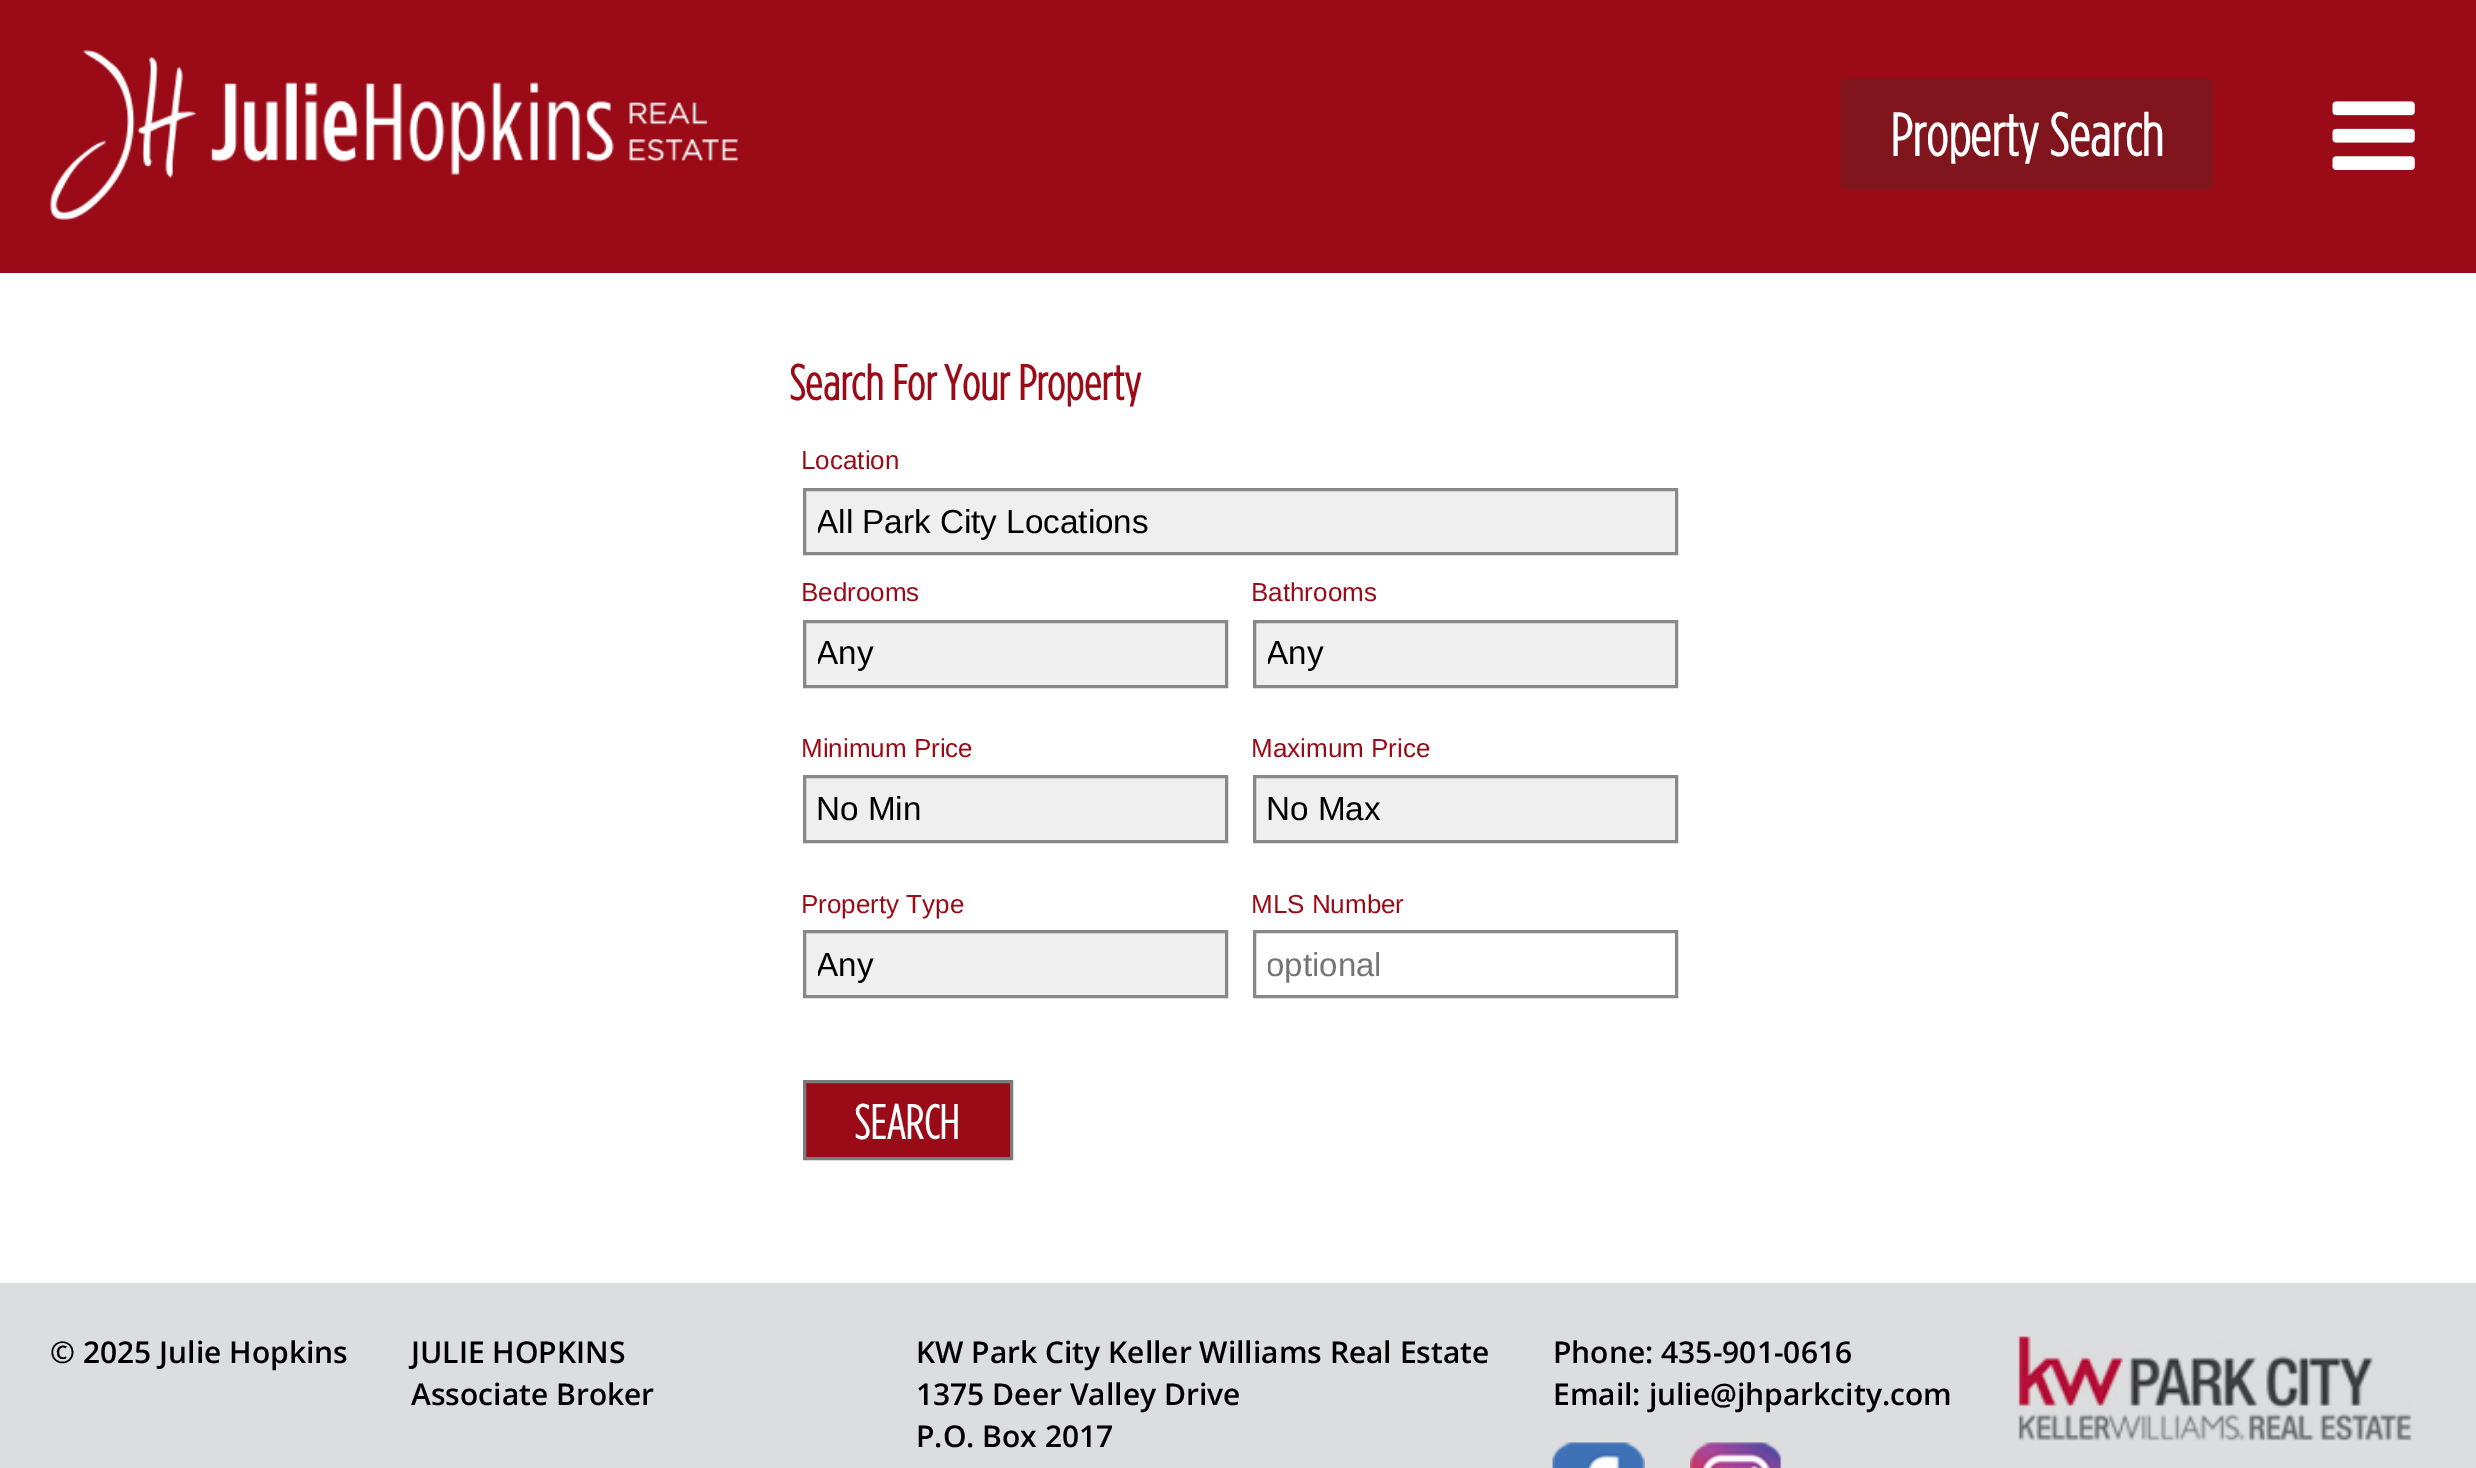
%!PS-Adobe-3.0
%%BoundingBox: 0 0 2476 1468
%%LanguageLevel: 3
%%Pages: 1
%%EndComments
%%BeginProlog
/rrect { 5 dict begin { /r /h /w /y /x } { exch def } forall
  x r add y moveto x w add y 2 copy h add r arct x w add y h add x 1 index r arct
  x y h add x y r arct x y 2 copy exch w add exch r arct closepath end } def
/drawimage { 5 dict begin { /h /w /y /x /name } { exch def } forall
  gsave x y translate w h scale
  w h 8 [w 0 0 h 0 0] name (r) file false 3 colorimage grestore end } def
%%EndProlog
%%BeginSetup
<< /PageSize [2476 1468] >> setpagedevice
%%EndSetup
%%Page: 1 1
0 1468 translate 1 -1 scale
4 setmiterlimit
0.863 0.867 0.871 setrgbcolor
0 0 2476 1468 rectfill
0.608 0.043 0.09 setrgbcolor
0 0 2476 273 rectfill
(images/1.raw) 50 50 688 170 drawimage
0.502 0.082 0.118 setrgbcolor
1840 78 373 112 8 rrect fill
(images/2.raw) 2332 101 83 69 drawimage
1 setgray
0 273 2476 1010 rectfill
0.937 setgray
newpath 804.5 489.5 moveto 1676.5 489.5 lineto 1676.5 553.5 lineto 804.5 553.5 lineto closepath gsave fill grestore
0.533 setgray
3 setlinewidth
stroke
0.937 setgray
newpath 804.5 621.5 moveto 1226.5 621.5 lineto 1226.5 686.5 lineto 804.5 686.5 lineto closepath gsave fill grestore
0.533 setgray
stroke
0.937 setgray
newpath 1254.5 621.5 moveto 1676.5 621.5 lineto 1676.5 686.5 lineto 1254.5 686.5 lineto closepath gsave fill grestore
0.533 setgray
stroke
0.937 setgray
newpath 804.5 776.5 moveto 1226.5 776.5 lineto 1226.5 841.5 lineto 804.5 841.5 lineto closepath gsave fill grestore
0.533 setgray
stroke
0.937 setgray
newpath 1254.5 776.5 moveto 1676.5 776.5 lineto 1676.5 841.5 lineto 1254.5 841.5 lineto closepath gsave fill grestore
0.533 setgray
stroke
0.937 setgray
newpath 804.5 931.5 moveto 1226.5 931.5 lineto 1226.5 996.5 lineto 804.5 996.5 lineto closepath gsave fill grestore
0.533 setgray
stroke
1254.5 931.5 422 65 rectstroke
0.608 0.043 0.09 setrgbcolor
newpath 804.5 1081.5 moveto 1011.5 1081.5 lineto 1011.5 1158.5 lineto 804.5 1158.5 lineto closepath gsave fill grestore
0.478 setgray
stroke
(images/3.raw) 1552 1442 93 26 drawimage
(images/4.raw) 1690 1442 92 26 drawimage
(images/5.raw) 2018 1336 394 105 drawimage
/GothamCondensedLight-Bold [60 0 0 -60 0 0] selectfont
1 setgray
1890 156 moveto (Property Search) show
/GothamCondensedLight-Bold [49.5 0 0 -49.5 0 0] selectfont
0.608 0.043 0.09 setrgbcolor
789 400 moveto (Search For Your Property) show
/LiberationSans-Regular [26 0 0 -26 0 0] selectfont
801 469 moveto (Location) show
gsave
818 503 845 37 rectclip
/LiberationSans-Regular [33.25 0 0 -33.25 0 0] selectfont
0 setgray
816 533 moveto (All Park City Locations) show
grestore
801 601 moveto (Bedrooms) show
gsave
818 635 395 38 rectclip
/LiberationSans-Regular [33.25 0 0 -33.25 0 0] selectfont
0 setgray
816 664 moveto (Any) show
grestore
1251 601 moveto (Bathrooms) show
gsave
1268 635 395 38 rectclip
/LiberationSans-Regular [33.25 0 0 -33.25 0 0] selectfont
0 setgray
1266 664 moveto (Any) show
grestore
801 757 moveto (Minimum Price) show
/LiberationSans-Regular [33.25 0 0 -33.25 0 0] selectfont
0 setgray
816 820 moveto (No Min) show
/LiberationSans-Regular [26 0 0 -26 0 0] selectfont
0.608 0.043 0.09 setrgbcolor
1251 757 moveto (Maximum Price) show
/LiberationSans-Regular [33.25 0 0 -33.25 0 0] selectfont
0 setgray
1266 820 moveto (No Max) show
/LiberationSans-Regular [26 0 0 -26 0 0] selectfont
0.608 0.043 0.09 setrgbcolor
801 913 moveto (Property Type) show
gsave
818 945 395 38 rectclip
/LiberationSans-Regular [33.25 0 0 -33.25 0 0] selectfont
0 setgray
816 976 moveto (Any) show
grestore
1251 913 moveto (MLS Number) show
gsave
1268 945 395 38 rectclip
/LiberationSans-Regular [33 0 0 -33 0 0] selectfont
0.459 setgray
1266 976 moveto (optional) show
grestore
/GothamCondensedLight-Bold [48 0 0 -48 0 0] selectfont
1 setgray
854 1139 moveto (SEARCH) show
/OpenSans-SemiBold [30 0 0 -30 0 0] selectfont
0 setgray
50 1363 moveto (© 2025 Julie Hopkins) show
411 1363 moveto (JULIE HOPKINS) show
411 1405 moveto (Associate Broker) show
916 1363 moveto (KW Park City Keller Williams Real Estate) show
916 1405 moveto (1375 Deer Valley Drive) show
916 1447 moveto (P.O. Box 2017) show
1553 1363 moveto (Phone: 435-901-0616) show
1553 1405 moveto (Email: julie@jhparkcity.com) show
showpage
%%EOF
